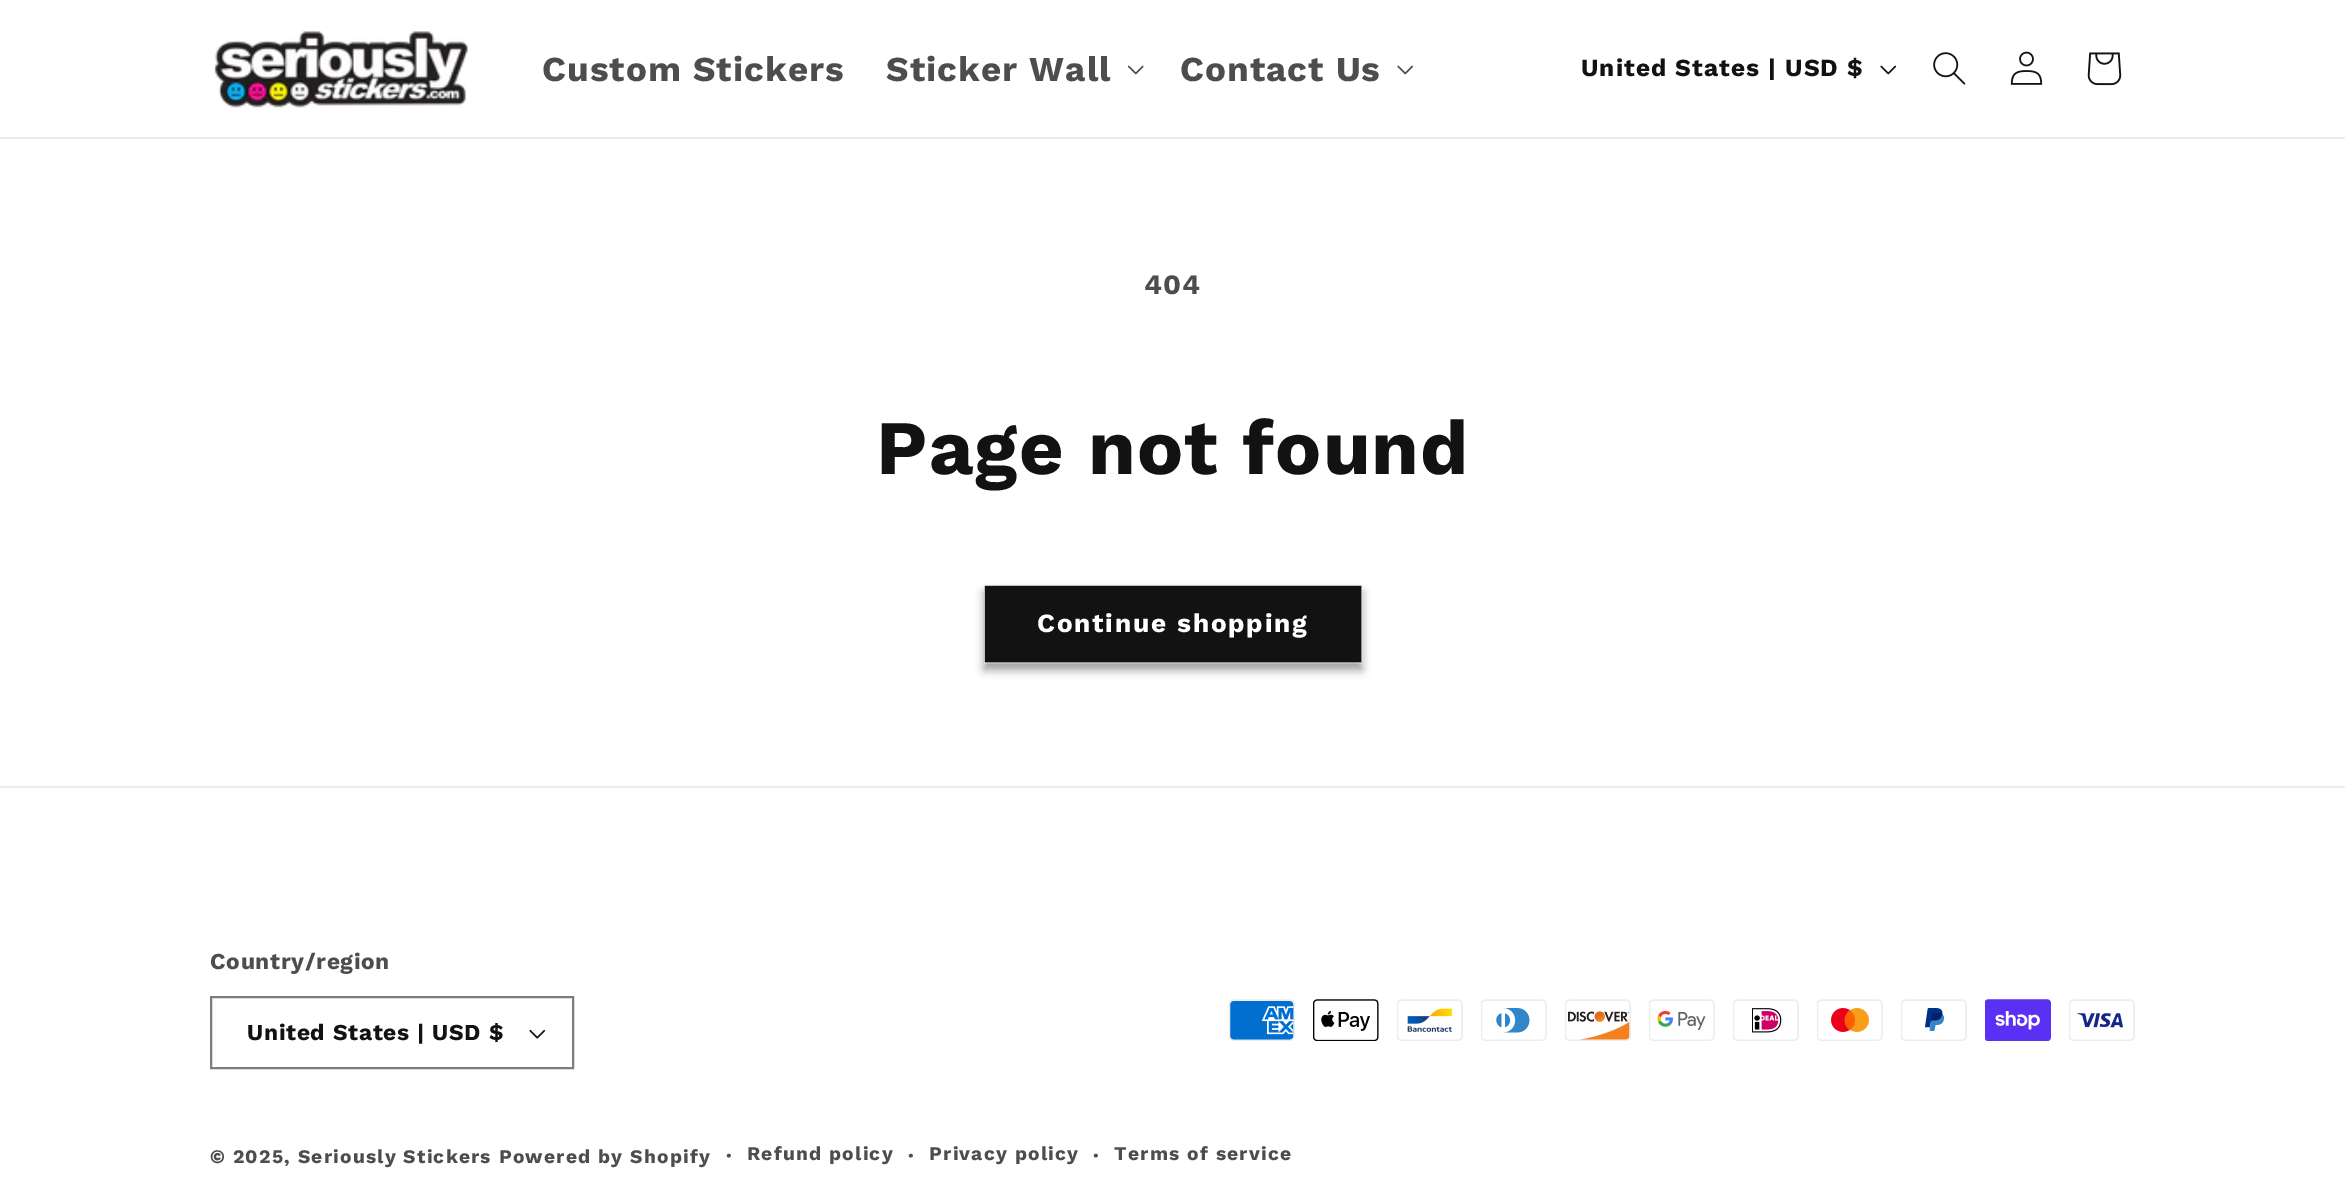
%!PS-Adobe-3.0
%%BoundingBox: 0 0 2345 1186
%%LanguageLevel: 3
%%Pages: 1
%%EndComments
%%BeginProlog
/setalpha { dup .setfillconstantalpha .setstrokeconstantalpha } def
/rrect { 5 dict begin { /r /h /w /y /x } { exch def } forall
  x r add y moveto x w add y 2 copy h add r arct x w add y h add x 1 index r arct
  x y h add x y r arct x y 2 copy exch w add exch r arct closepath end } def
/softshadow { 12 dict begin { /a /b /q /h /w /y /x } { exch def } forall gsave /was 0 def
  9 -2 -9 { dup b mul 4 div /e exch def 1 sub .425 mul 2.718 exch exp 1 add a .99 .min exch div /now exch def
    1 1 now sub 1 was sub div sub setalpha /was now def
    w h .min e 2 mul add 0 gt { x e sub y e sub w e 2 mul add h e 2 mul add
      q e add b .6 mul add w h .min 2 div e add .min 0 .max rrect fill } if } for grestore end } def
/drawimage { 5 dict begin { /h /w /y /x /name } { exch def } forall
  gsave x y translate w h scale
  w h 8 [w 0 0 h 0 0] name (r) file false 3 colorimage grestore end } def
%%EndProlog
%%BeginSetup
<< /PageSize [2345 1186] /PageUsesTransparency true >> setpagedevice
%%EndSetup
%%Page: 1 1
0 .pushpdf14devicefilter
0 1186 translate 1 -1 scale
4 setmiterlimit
1 setgray
0 0 2345 1186 rectfill
0.925 setgray
0 137 2345 2 rectfill
(images/1.raw) 214 31 254 77 drawimage
(images/2.raw) 1127 65 17 10 drawimage
(images/3.raw) 1397 65 17 10 drawimage
(images/4.raw) 1880 65 17 10 drawimage
(images/5.raw) 1933 52 33 33 drawimage
(images/6.raw) 2010 51 33 34 drawimage
(images/7.raw) 2087 52 35 34 drawimage
0.071 setgray
984 592 378 78 0 4.5 0.4 softshadow
984 585 378 78 rectfill
1 setgray
0.5 setlinewidth
984.25 585.25 377.5 77.5 rectstroke
0.925 setgray
0 786 2345 2 rectfill
(images/8.raw) 529 1029 17 10 drawimage
0.49 setgray
2 setlinewidth
211 997 362 71 rectstroke
(images/9.raw) 1229 999 66 42 drawimage
(images/10.raw) 1313 999 66 42 drawimage
(images/11.raw) 1397 999 66 42 drawimage
(images/12.raw) 1481 999 66 42 drawimage
(images/13.raw) 1565 999 66 42 drawimage
(images/14.raw) 1649 999 66 42 drawimage
(images/15.raw) 1733 999 66 42 drawimage
(images/16.raw) 1817 999 66 42 drawimage
(images/17.raw) 1901 999 66 42 drawimage
(images/18.raw) 1985 999 66 42 drawimage
(images/19.raw) 2069 999 66 42 drawimage
/WorkSans-Bold [35 0 0 -35 0 0] selectfont
0.302 setgray
542 81 moveto 1.05 0 (Custom Stickers) ashow
886 81 moveto 1.05 0 (Sticker Wall) ashow
1180 81 moveto 1.05 0 (Contact Us) ashow
/WorkSans-Bold [24.5 0 0 -24.5 0 0] selectfont
0.071 setgray
1581 76 moveto 1.05 0 (United States | USD $) ashow
/WorkSans-Bold [28 0 0 -28 0 0] selectfont
0.302 setgray
1144 294 moveto 1.05 0 (404) ashow
/WorkSans-Bold [77 0 0 -77 0 0] selectfont
0.071 setgray
876 474 moveto 1.2 0 (Page not found) ashow
/WorkSans-Bold [26.25 0 0 -26.25 0 0] selectfont
1 setgray
1037 632 moveto 1.75 0 (Continue shopping) ashow
/WorkSans-Bold [22.75 0 0 -22.75 0 0] selectfont
0.302 setgray
210 969 moveto 0.7 0 (Country/region) ashow
0.071 setgray
247 1040 moveto 0.7 0 (United States | USD $) ashow
/WorkSans-Bold [19.25 0 0 -19.25 0 0] selectfont
0.302 setgray
210 1163 moveto 1.2 0 (© 2025, Seriously Stickers Powered by Shopify) ashow
/WorkSans-Bold [21 0 0 -21 0 0] selectfont
726 1163 moveto 1.2 0 (·) ashow
/WorkSans-Bold [19.25 0 0 -19.25 0 0] selectfont
747 1160 moveto 1.2 0 (Refund policy) ashow
/WorkSans-Bold [21 0 0 -21 0 0] selectfont
908 1163 moveto 1.2 0 (·) ashow
/WorkSans-Bold [19.25 0 0 -19.25 0 0] selectfont
929 1160 moveto 1.2 0 (Privacy policy) ashow
/WorkSans-Bold [21 0 0 -21 0 0] selectfont
1093 1163 moveto 1.2 0 (·) ashow
/WorkSans-Bold [19.25 0 0 -19.25 0 0] selectfont
1114 1160 moveto 1.2 0 (Terms of service) ashow
.poppdf14devicefilter showpage
%%EOF
